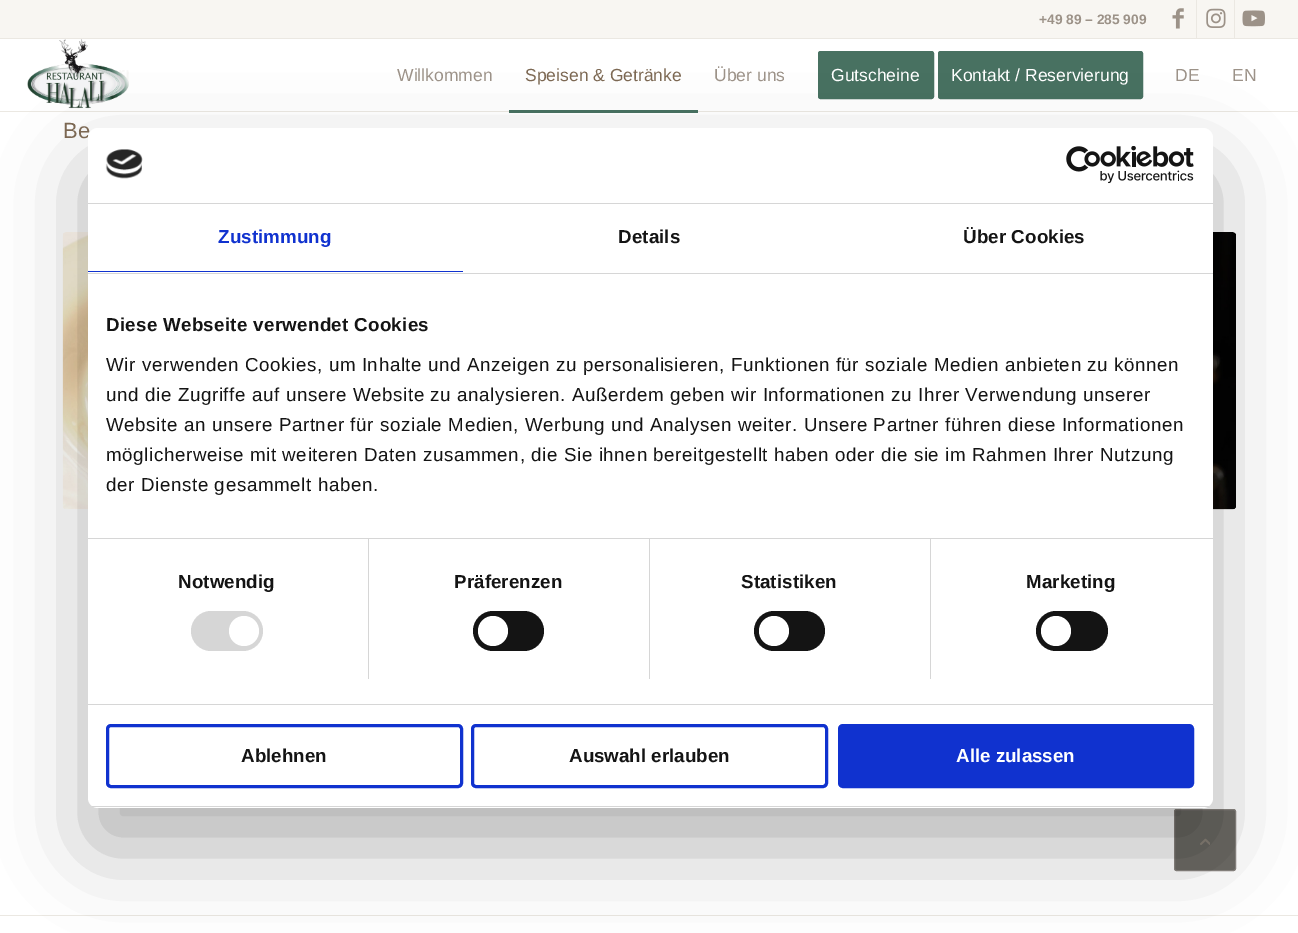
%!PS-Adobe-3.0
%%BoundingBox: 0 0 1298 933
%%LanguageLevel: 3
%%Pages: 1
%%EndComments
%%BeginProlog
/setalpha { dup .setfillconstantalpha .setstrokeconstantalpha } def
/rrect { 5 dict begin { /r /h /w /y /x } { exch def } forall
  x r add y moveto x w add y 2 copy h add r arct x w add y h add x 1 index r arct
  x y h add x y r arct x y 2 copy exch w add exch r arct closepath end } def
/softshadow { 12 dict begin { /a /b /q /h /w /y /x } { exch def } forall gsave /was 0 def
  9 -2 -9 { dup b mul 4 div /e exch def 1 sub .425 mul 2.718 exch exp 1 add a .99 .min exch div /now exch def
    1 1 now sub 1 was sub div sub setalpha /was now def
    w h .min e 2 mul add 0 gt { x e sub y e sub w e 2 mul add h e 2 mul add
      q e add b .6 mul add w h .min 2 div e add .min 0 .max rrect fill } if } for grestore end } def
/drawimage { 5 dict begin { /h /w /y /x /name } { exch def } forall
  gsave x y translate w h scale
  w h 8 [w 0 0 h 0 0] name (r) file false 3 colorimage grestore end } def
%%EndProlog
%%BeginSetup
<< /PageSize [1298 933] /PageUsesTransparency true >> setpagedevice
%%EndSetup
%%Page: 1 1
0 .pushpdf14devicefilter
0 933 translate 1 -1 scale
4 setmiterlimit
1 setgray
0 0 1298 933 rectfill
0.973 0.965 0.949 setrgbcolor
0 0 1298 38 rectfill
0.922 0.91 0.886 setrgbcolor
0 38 1298 1 rectfill
1196 0 1 38 rectfill
(images/1.raw) 1172 8 12 21 drawimage
1234 0 1 38 rectfill
(images/2.raw) 1206 8 20 20 drawimage
(images/3.raw) 1242 10 23 17 drawimage
0 111 1298 1 rectfill
(images/4.raw) 27 39 102 70 drawimage
0.282 0.443 0.38 setrgbcolor
509 110 189 3 rectfill
819.5 52.5 113 45 1 rrect gsave fill grestore
3 setlinewidth
stroke
939.5 52.5 202 45 1 rrect gsave fill grestore
stroke
(images/5.raw) 62 232 26 278 drawimage
(images/6.raw) 1213 232 23 278 drawimage
0.922 0.91 0.886 setrgbcolor
0 915 1298 1 rectfill
0.42 0.412 0.392 setrgbcolor
1174.5 809.5 61 61 2 rrect gsave fill grestore
0.537 0.522 0.502 setrgbcolor
1 setlinewidth
stroke
(images/9.raw) 1200 838 10 7 drawimage
0 setgray
88 168 1125 680 10 42.5 0.3 softshadow
/LiberationSans-Bold [13.75 0 0 -13.75 0 0] selectfont
0.612 0.573 0.533 setrgbcolor
1039 24 moveto (+49 89 – 285 909) show
/LiberationSans-Regular [17.5 0 0 -17.5 0 0] selectfont
397 81 moveto (Willkommen) show
0.486 0.408 0.325 setrgbcolor
525 81 moveto (Speisen & Getränke) show
0.612 0.573 0.533 setrgbcolor
714 81 moveto (Über uns) show
1 setgray
831 81 moveto (Gutscheine) show
951 81 moveto (Kontakt / Reservierung) show
0.612 0.573 0.533 setrgbcolor
1175 81 moveto (DE) show
1232 81 moveto (EN) show
/LiberationSans-Regular [22 0 0 -22 0 0] selectfont
0.486 0.408 0.325 setrgbcolor
63 138 moveto (Be) show
1 setgray
88 128 1125 680 10 rrect fill
0.839 setgray
88 203 1125 1 rectfill
(images/7.raw) 105 149 38 30 drawimage
(images/8.raw) 1066 146 128 38 drawimage
88 273 1125 1 rectfill
0.063 0.196 0.812 setrgbcolor
88 271 375 1 rectfill
/LiberationSans-Bold [18.75 0 0 -18.75 0 0] selectfont
218 243 moveto 0.1 0 (Zustimmung) ashow
0.078 setgray
618 243 moveto 0.1 0 (Details) ashow
963 243 moveto 0.1 0 (Über Cookies) ashow
0.839 setgray
88 538 1125 1 rectfill
0.078 setgray
106 331 moveto 0.3 0 (Diese Webseite verwendet Cookies) ashow
/LiberationSans-Regular [18.75 0 0 -18.75 0 0] selectfont
106 371 moveto 0.62 0 (Wir verwenden Cookies, um Inhalte und Anzeigen zu personalisieren, Funktionen für soziale Medien anbieten zu können) ashow
106 401 moveto 0.62 0 (und die Zugriffe auf unsere Website zu analysieren. Außerdem geben wir Informationen zu Ihrer Verwendung unserer) ashow
106 431 moveto 0.62 0 (Website an unsere Partner für soziale Medien, Werbung und Analysen weiter. Unsere Partner führen diese Informationen) ashow
106 461 moveto 0.62 0 (möglicherweise mit weiteren Daten zusammen, die Sie ihnen bereitgestellt haben oder die sie im Rahmen Ihrer Nutzung) ashow
106 491 moveto 0.62 0 (der Dienste gesammelt haben.) ashow
0.839 setgray
88 704 1125 1 rectfill
368 539 1 140 rectfill
/LiberationSans-Bold [18.75 0 0 -18.75 0 0] selectfont
0.078 setgray
178 588 moveto 0.1 0 (Notwendig) ashow
0.839 setgray
191 611 72 40 20 rrect fill
1 setgray
newpath 244 631 15 0 360 arc closepath fill
0.839 setgray
649 539 1 140 rectfill
0.078 setgray
454 588 moveto 0.1 0 (Präferenzen) ashow
473 611 71 40 20 rrect fill
1 setgray
newpath 493 631 15 0 360 arc closepath fill
0.839 setgray
930 539 1 140 rectfill
0.078 setgray
741 588 moveto 0.1 0 (Statistiken) ashow
754 611 71 40 20 rrect fill
1 setgray
newpath 774 631 15 0 360 arc closepath fill
0.078 setgray
1026 588 moveto 0.1 0 (Marketing) ashow
1036 611 72 40 20 rrect fill
1 setgray
newpath 1056 631 15 0 360 arc closepath fill
gsave
88 128 1125 680 10 rrect clip newpath
0.839 setgray
88 806 1125 1 rectfill
grestore
0.063 0.196 0.812 setrgbcolor
3 setlinewidth
107.5 725.5 354 61 3.5 rrect stroke
0.078 setgray
241 762 moveto (Ablehnen) show
0.063 0.196 0.812 setrgbcolor
472.5 725.5 354 61 3.5 rrect stroke
0.078 setgray
569 762 moveto (Auswahl erlauben) show
0.063 0.196 0.812 setrgbcolor
839.5 725.5 353 61 3.5 rrect gsave fill grestore
stroke
1 setgray
956 762 moveto (Alle zulassen) show
.poppdf14devicefilter showpage
%%EOF
